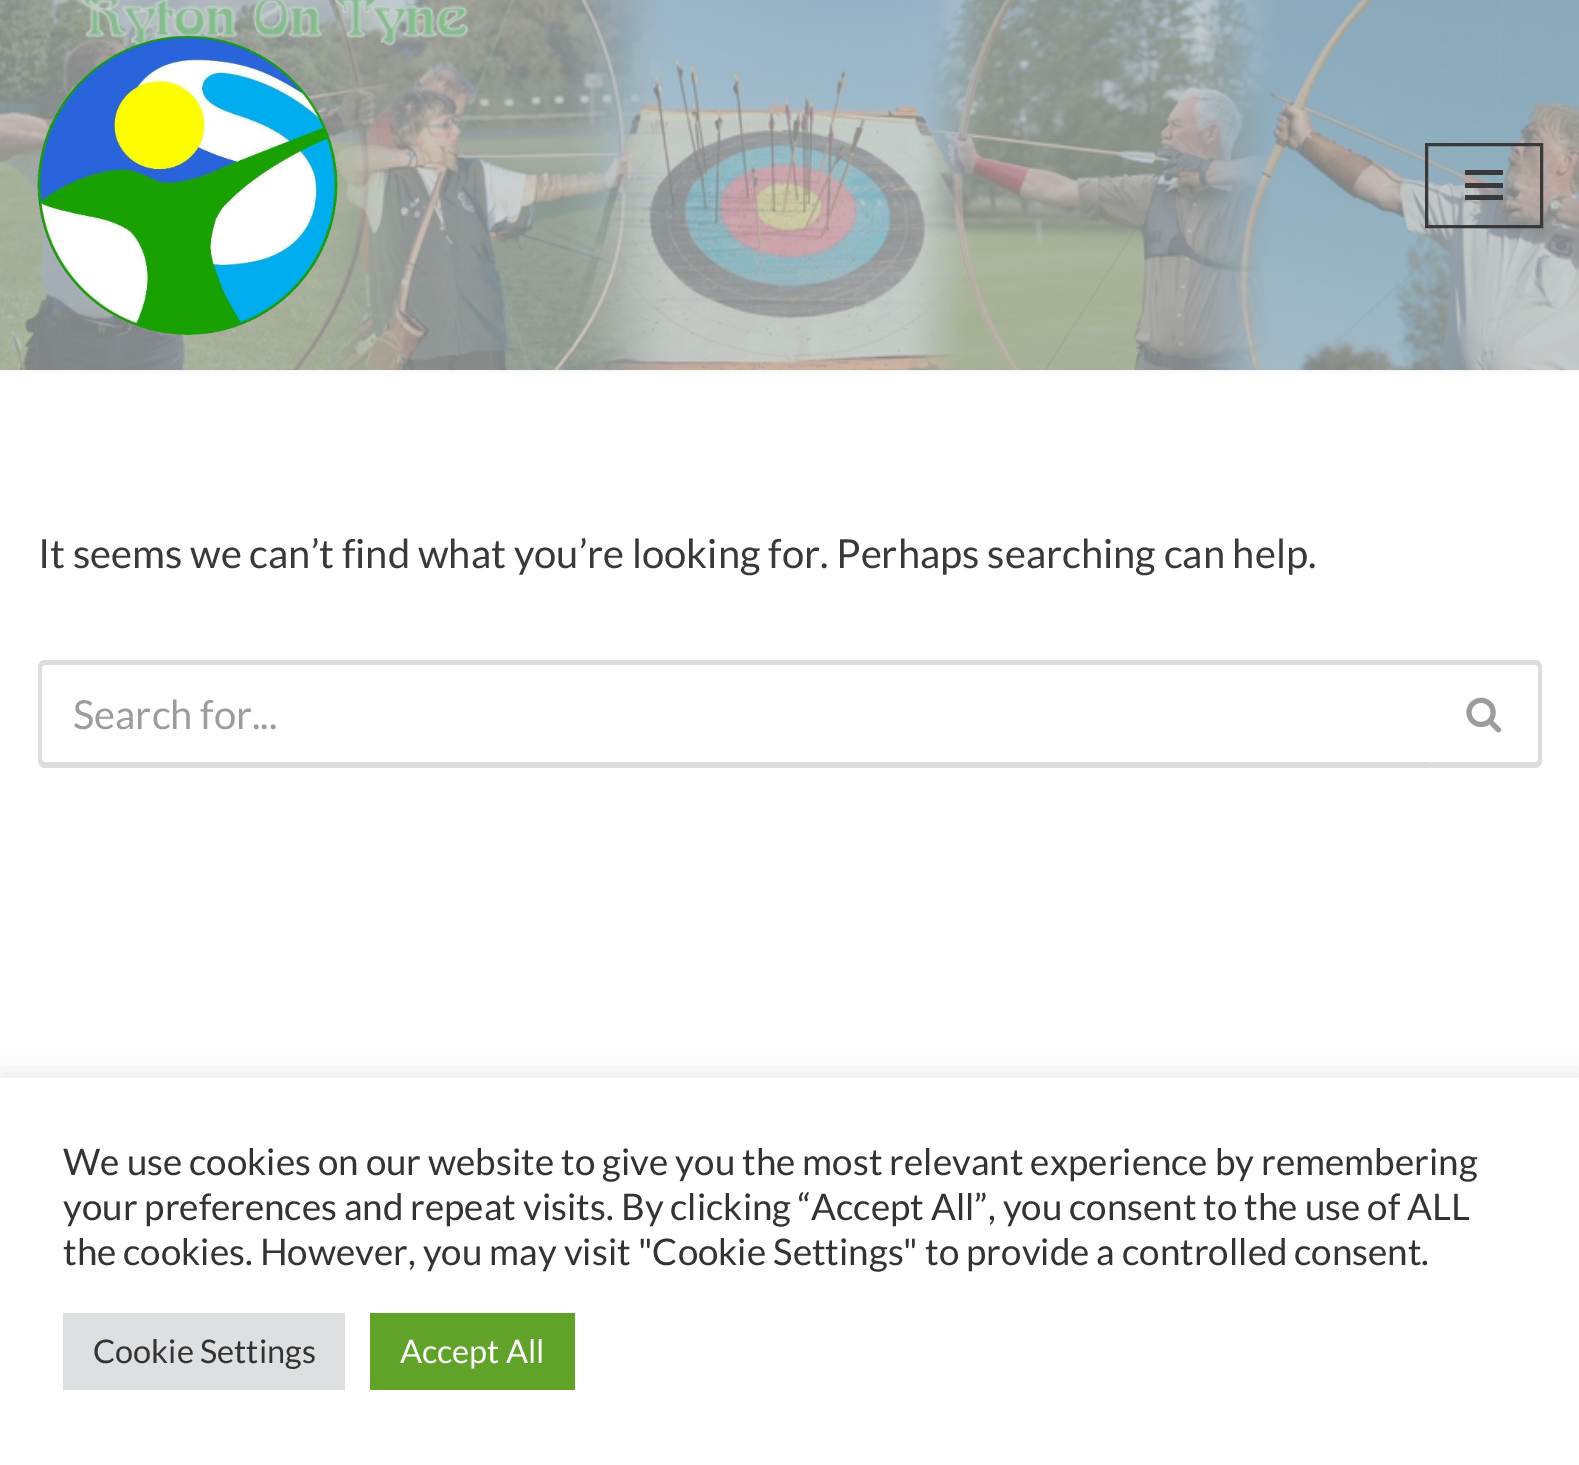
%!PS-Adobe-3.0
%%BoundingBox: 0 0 1579 1465
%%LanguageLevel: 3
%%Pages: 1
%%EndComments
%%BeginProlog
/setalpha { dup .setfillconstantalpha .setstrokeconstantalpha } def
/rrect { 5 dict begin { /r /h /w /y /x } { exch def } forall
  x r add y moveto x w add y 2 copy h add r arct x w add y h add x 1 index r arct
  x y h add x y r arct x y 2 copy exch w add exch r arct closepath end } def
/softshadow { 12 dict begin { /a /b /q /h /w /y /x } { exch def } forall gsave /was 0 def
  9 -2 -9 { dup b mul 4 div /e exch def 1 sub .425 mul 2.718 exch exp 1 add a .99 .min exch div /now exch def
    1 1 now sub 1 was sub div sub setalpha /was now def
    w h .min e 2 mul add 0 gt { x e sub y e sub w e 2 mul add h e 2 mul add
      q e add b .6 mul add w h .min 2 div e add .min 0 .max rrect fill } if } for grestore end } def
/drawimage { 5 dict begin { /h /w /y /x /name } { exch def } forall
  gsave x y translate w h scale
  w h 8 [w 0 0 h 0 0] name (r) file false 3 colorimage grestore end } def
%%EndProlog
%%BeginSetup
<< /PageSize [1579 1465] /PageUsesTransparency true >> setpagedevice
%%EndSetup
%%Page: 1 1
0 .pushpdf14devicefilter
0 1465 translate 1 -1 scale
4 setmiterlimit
1 setgray
0 0 1579 1465 rectfill
0 setgray
0 -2 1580 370 0 4 0.1 softshadow
(images/1.raw) 0 0 1579 370 drawimage
(images/2.raw) 37 35 301 300 drawimage
0.224 setgray
3 setlinewidth
1426.5 144.5 115 82 rectstroke
1465 170 38 5 rectfill
1465 183 38 5 rectfill
1465 195 38 5 rectfill
0.867 setgray
newpath 45 660 moveto 1430 660 lineto 1430 768 lineto 45 768 lineto 41 768 38 764 38 760 curveto 38 668 lineto 38 663 41 660 45 660 curveto closepath 45 665 moveto 1430 665 lineto 1430 762 lineto 45 762 lineto 44 762 42 761 42 760 curveto 42 668 lineto 42 666 44 665 45 665 curveto closepath eofill
newpath 1430 660 moveto 1535 660 lineto 1539 660 1542 663 1542 668 curveto 1542 760 lineto 1542 764 1539 768 1535 768 curveto 1430 768 lineto closepath 1430 665 moveto 1535 665 lineto 1536 665 1538 666 1538 668 curveto 1538 760 lineto 1538 761 1536 762 1535 762 curveto 1430 762 lineto closepath eofill
(images/3.raw) 1466 697 36 36 drawimage
1 setgray
1430 762 1 1 rectfill
0.675 0.671 0.671 setrgbcolor
0 1075 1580 388 0 12.5 0.3 softshadow
1 setgray
0 1078 1579 387 rectfill
0.871 0.875 0.878 setrgbcolor
63 1313 282 77 rectfill
0.38 0.635 0.161 setrgbcolor
370 1313 205 77 rectfill
/Lato-Regular [40 0 0 -40 0 0] selectfont
0.224 setgray
38 568 moveto (It seems we can’t find what you’re looking for. Perhaps searching can help.) show
0.612 setgray
73 729 moveto (Search for...) show
/Lato-Regular [36.65 0 0 -36.65 0 0] selectfont
0.2 setgray
63 1175 moveto (We use cookies on our website to give you the most relevant experience by remembering) show
63 1220 moveto (your preferences and repeat visits. By clicking “Accept All”, you consent to the use of ALL) show
63 1265 moveto (the cookies. However, you may visit "Cookie Settings" to provide a controlled consent.) show
/Lato-Regular [32.5 0 0 -32.5 0 0] selectfont
93 1363 moveto (Cookie Settings) show
1 setgray
400 1363 moveto (Accept All) show
.poppdf14devicefilter showpage
%%EOF
